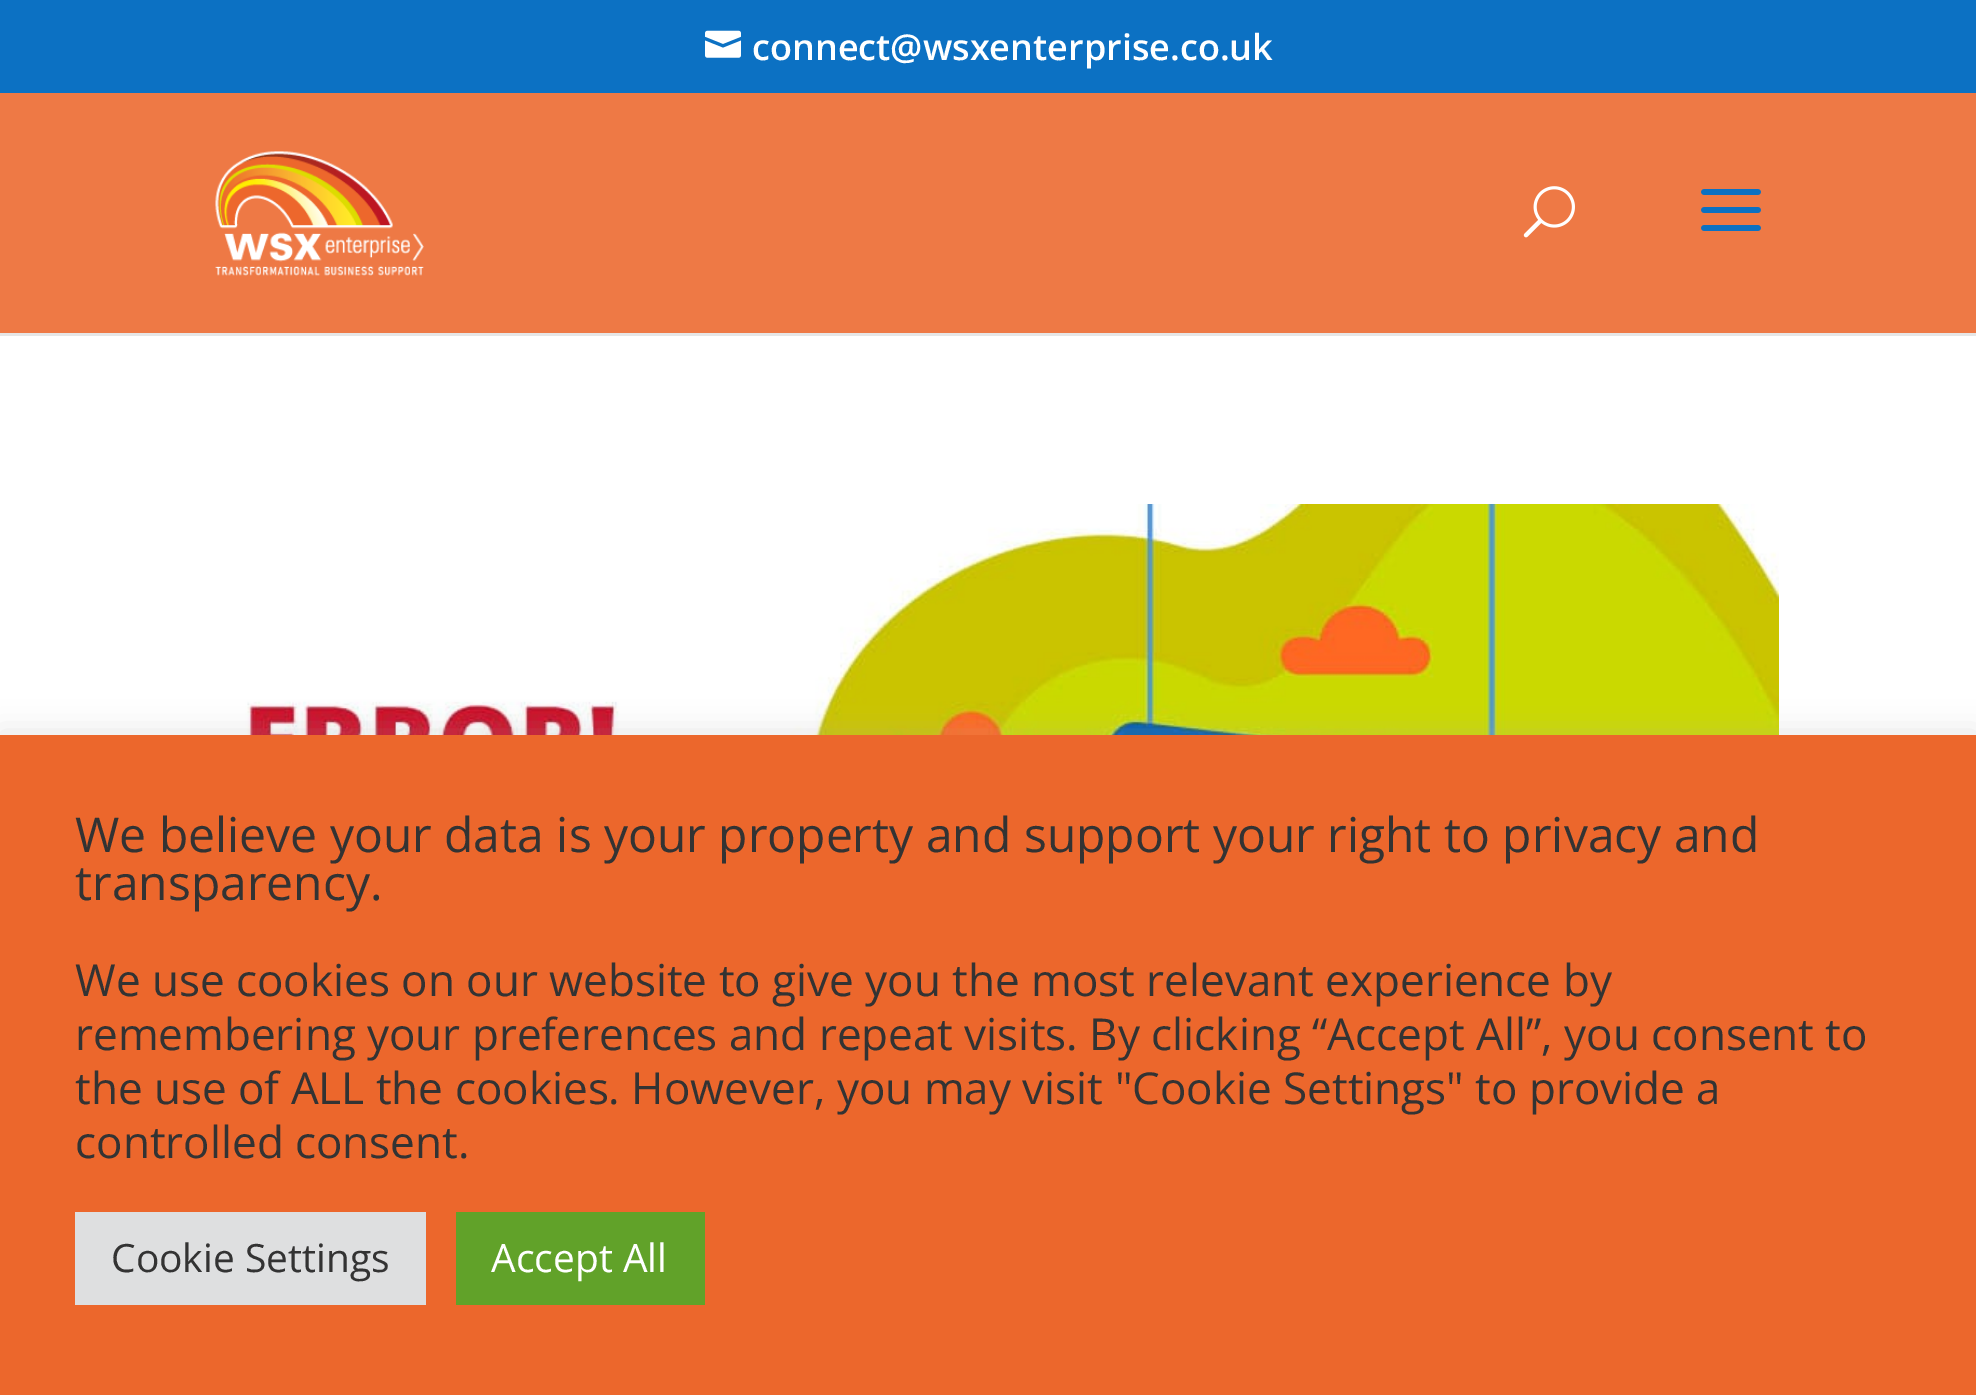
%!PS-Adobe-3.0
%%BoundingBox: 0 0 1976 1395
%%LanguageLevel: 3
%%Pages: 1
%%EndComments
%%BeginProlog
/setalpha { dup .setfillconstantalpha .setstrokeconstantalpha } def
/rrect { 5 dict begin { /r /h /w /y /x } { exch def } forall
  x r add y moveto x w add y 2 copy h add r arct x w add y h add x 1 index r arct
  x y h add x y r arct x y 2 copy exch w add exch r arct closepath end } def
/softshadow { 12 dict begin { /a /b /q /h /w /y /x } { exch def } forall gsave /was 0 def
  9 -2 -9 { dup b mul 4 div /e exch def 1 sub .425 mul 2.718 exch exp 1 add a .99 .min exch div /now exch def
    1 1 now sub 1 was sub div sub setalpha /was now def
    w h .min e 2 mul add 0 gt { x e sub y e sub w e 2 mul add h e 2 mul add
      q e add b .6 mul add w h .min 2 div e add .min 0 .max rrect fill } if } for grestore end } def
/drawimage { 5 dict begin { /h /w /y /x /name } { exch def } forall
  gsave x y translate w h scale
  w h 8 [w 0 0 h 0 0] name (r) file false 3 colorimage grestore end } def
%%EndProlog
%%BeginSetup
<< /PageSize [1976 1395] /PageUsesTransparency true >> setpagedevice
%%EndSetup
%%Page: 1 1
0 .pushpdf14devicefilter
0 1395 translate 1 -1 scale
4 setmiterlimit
1 setgray
0 0 1976 1395 rectfill
0.047 0.443 0.765 setrgbcolor
0 0 1976 93 rectfill
(images/1.raw) 705 30 36 28 drawimage
0.902 setgray
0 333 1976 3 rectfill
0.933 0.475 0.271 setrgbcolor
0 93 1976 240 rectfill
(images/2.raw) 215 151 209 125 drawimage
(images/3.raw) 1523 186 52 52 drawimage
(images/4.raw) 1701 189 60 42 drawimage
(images/5.raw) 225 504 1554 231 drawimage
0.675 0.671 0.671 setrgbcolor
0 732 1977 660 0 15 0.3 softshadow
0.925 0.404 0.173 setrgbcolor
0 735 1976 660 rectfill
0.871 0.875 0.878 setrgbcolor
75 1212 351 93 rectfill
0.38 0.635 0.161 setrgbcolor
456 1212 249 93 rectfill
/OpenSans-SemiBold [36 0 0 -36 0 0] selectfont
1 setgray
752 60 moveto (connect@wsxenterprise.co.uk) show
/OpenSans-Regular [48 0 0 -48 0 0] selectfont
0.2 setgray
75 852 moveto (We believe your data is your property and support your right to privacy and) show
75 900 moveto (transparency.) show
/OpenSans-Regular [44 0 0 -44 0 0] selectfont
75 996 moveto (We use cookies on our website to give you the most relevant experience by) show
75 1050 moveto (remembering your preferences and repeat visits. By clicking “Accept All”, you consent to) show
75 1104 moveto (the use of ALL the cookies. However, you may visit "Cookie Settings" to provide a) show
75 1158 moveto (controlled consent.) show
/OpenSans-Regular [39 0 0 -39 0 0] selectfont
111 1272 moveto (Cookie Settings) show
1 setgray
491 1272 moveto (Accept All) show
.poppdf14devicefilter showpage
%%EOF
